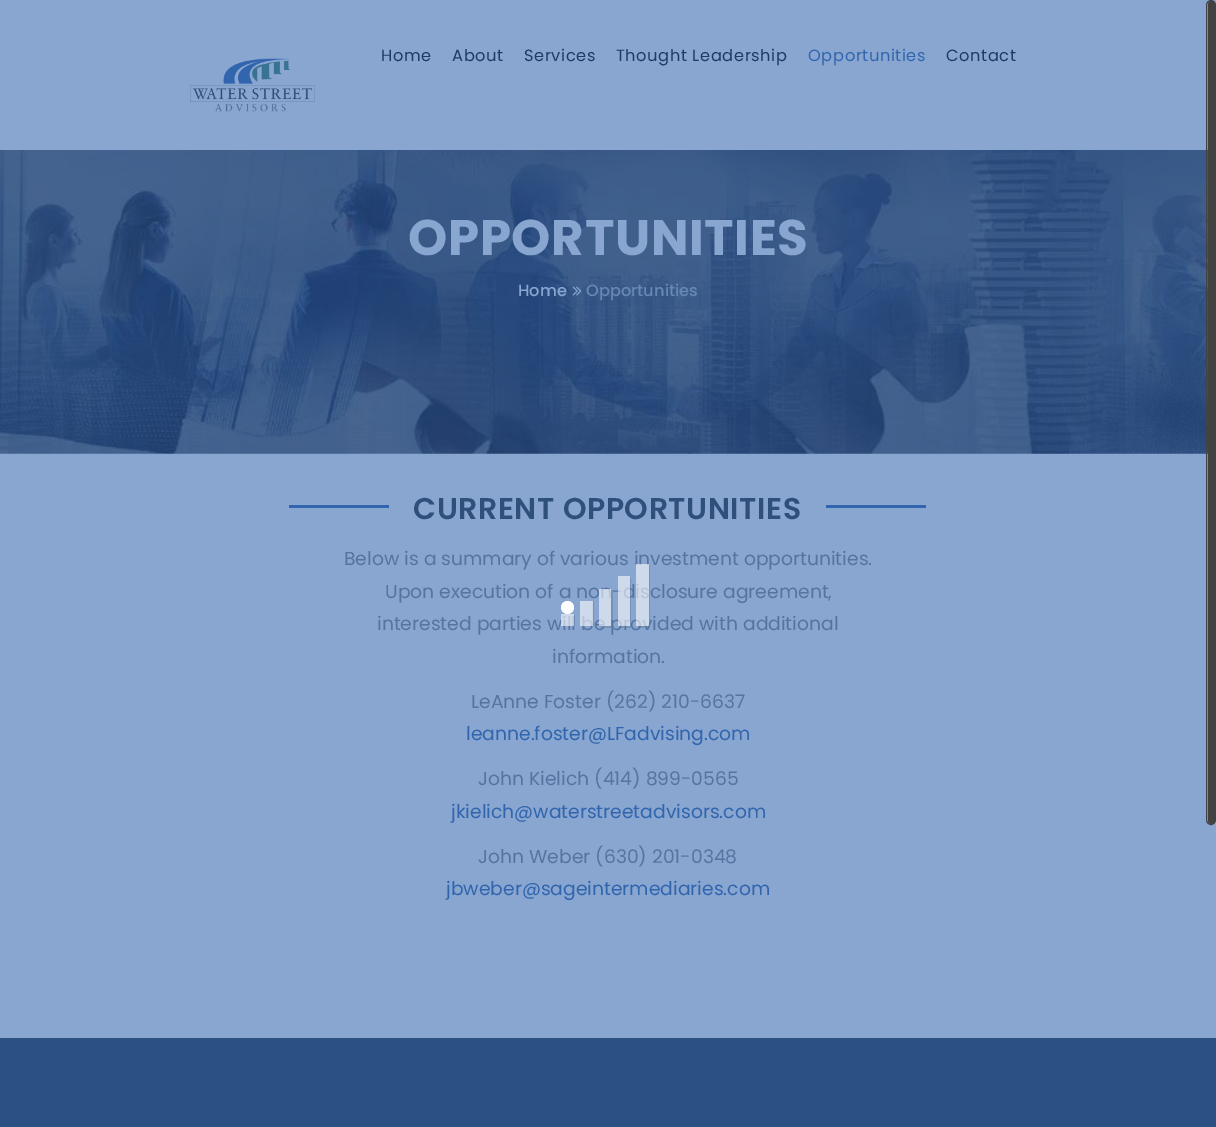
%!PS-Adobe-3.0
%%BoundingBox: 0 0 1216 1127
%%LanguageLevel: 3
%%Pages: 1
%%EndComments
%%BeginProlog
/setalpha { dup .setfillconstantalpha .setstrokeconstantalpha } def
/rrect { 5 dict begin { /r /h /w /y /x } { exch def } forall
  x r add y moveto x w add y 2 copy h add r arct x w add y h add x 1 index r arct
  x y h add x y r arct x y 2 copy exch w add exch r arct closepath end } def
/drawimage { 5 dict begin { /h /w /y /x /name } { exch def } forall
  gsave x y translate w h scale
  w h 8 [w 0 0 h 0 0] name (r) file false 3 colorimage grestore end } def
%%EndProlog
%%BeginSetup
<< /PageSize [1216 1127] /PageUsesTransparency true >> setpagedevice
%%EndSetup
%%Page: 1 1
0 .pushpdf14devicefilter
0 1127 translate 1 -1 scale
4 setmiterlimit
0.533 0.651 0.816 setrgbcolor
0 0 1216 1127 rectfill
(images/1.raw) 190 58 125 54 drawimage
(images/2.raw) 0 150 1208 304 drawimage
(images/3.raw) 572 286 10 10 drawimage
0.192 0.396 0.682 setrgbcolor
289 505 100 3 rectfill
826 505 100 3 rectfill
0.176 0.314 0.514 setrgbcolor
0 1038 1216 89 rectfill
0.259 setgray
1208 1 7 823 3.5 rrect fill
1206.5 0.5 9 824 4.5 rrect stroke
0.12 setalpha
0 setgray
newpath 581 601 moveto 592.5 601 lineto 592.5 626 lineto 594 626 lineto 594 601 lineto closepath fill
newpath 600 626 moveto 600 628 lineto 613 628 lineto 613 590 lineto 611 590 lineto 611 626 lineto closepath fill
newpath 619 626 moveto 619 628 lineto 631 628 lineto 631 578 lineto 630 578 lineto 630 626 lineto closepath fill
newpath 638 626 moveto 638 628 lineto 650 628 lineto 650 565 lineto 649 565 lineto 649 626 lineto closepath fill
574 614 1 12 rectfill
/Poppins-Regular [16.25 0 0 -16.25 0 0] selectfont
1 setalpha
0.11 0.231 0.396 setrgbcolor
381 61 moveto 0.6 0 (Home) ashow
452 61 moveto 0.6 0 (About) ashow
524 61 moveto 0.6 0 (Services) ashow
616 61 moveto 0.6 0 (Thought Leadership) ashow
0.192 0.396 0.682 setrgbcolor
808 61 moveto 0.6 0 (Opportunities) ashow
0.11 0.231 0.396 setrgbcolor
946 61 moveto 0.6 0 (Contact) ashow
/Poppins-Bold [50 0 0 -50 0 0] selectfont
0.533 0.651 0.816 setrgbcolor
408 255 moveto 0.6 0 (OPPORTUNITIES) ashow
/Poppins-Medium [16.25 0 0 -16.25 0 0] selectfont
518 296 moveto (Home) show
0.408 0.529 0.702 setrgbcolor
586 296 moveto (Opportunities) show
/Poppins-SemiBold [30 0 0 -30 0 0] selectfont
0.188 0.314 0.486 setrgbcolor
413 519 moveto 0.6 0 (CURRENT OPPORTUNITIES) ashow
/Poppins-Regular [18.75 0 0 -18.75 0 0] selectfont
0.333 0.455 0.624 setrgbcolor
344 565 moveto (Below is a summary of various investment opportunities.) show
385 598 moveto (Upon execution of a non-disclosure agreement,) show
377 630 moveto (interested parties will be provided with additional) show
552 663 moveto (information.) show
471 708 moveto (LeAnne Foster \(262\) 210-6637) show
0.192 0.396 0.682 setrgbcolor
466 740 moveto (leanne.foster@LFadvising.com) show
0.333 0.455 0.624 setrgbcolor
478 785 moveto (John Kielich \(414\) 899-0565) show
0.192 0.396 0.682 setrgbcolor
451 818 moveto (jkielich@waterstreetadvisors.com) show
0.333 0.455 0.624 setrgbcolor
478 863 moveto (John Weber \(630\) 201-0348) show
0.192 0.396 0.682 setrgbcolor
446 895 moveto (jbweber@sageintermediaries.com) show
1 setgray
newpath 567.5 607.5 6.5 0 360 arc closepath fill
0.58 setalpha
580 601 13 25 rectfill
599 589 12 37 rectfill
618 576 12 50 rectfill
636 564 13 62 rectfill
561 614 13 12 rectfill
.poppdf14devicefilter showpage
%%EOF
